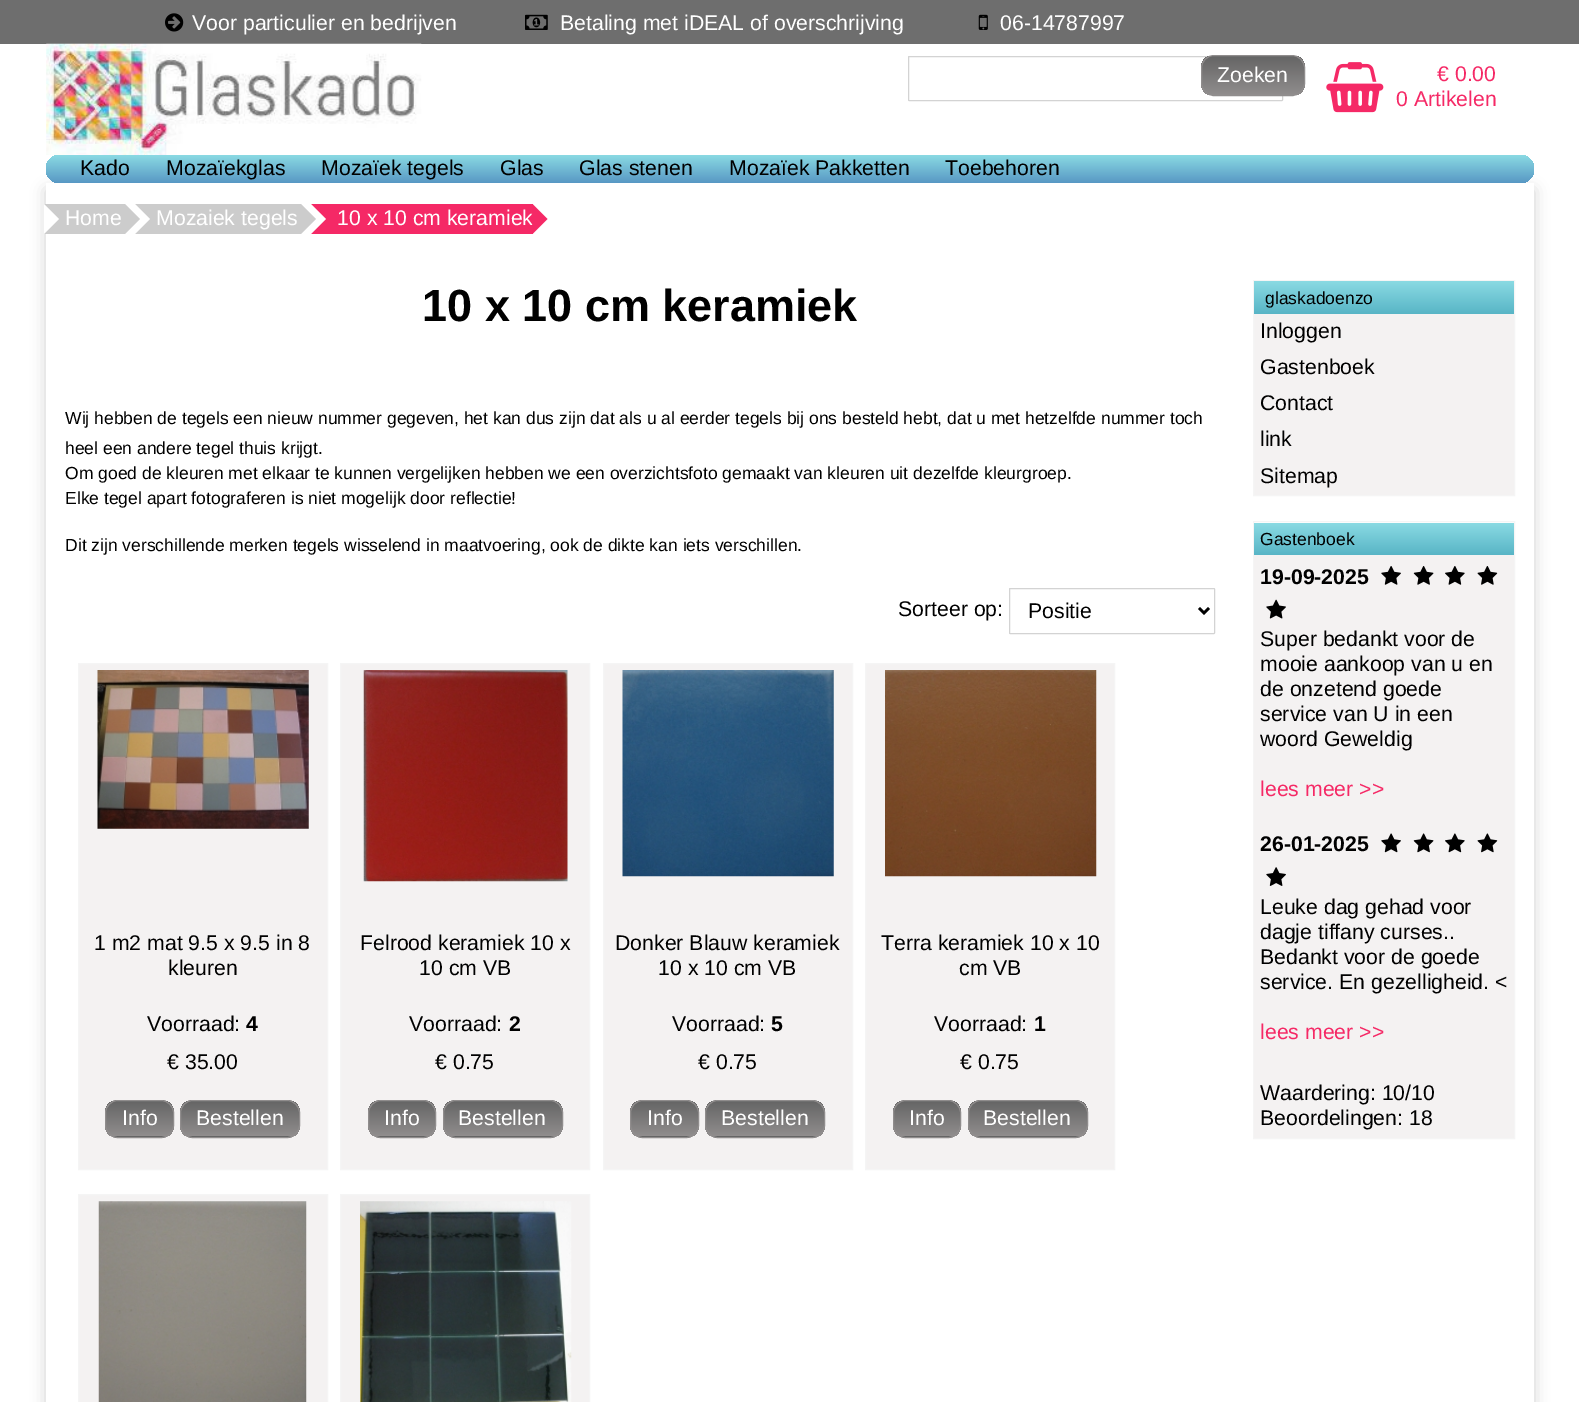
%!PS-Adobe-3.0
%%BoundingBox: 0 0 1579 1402
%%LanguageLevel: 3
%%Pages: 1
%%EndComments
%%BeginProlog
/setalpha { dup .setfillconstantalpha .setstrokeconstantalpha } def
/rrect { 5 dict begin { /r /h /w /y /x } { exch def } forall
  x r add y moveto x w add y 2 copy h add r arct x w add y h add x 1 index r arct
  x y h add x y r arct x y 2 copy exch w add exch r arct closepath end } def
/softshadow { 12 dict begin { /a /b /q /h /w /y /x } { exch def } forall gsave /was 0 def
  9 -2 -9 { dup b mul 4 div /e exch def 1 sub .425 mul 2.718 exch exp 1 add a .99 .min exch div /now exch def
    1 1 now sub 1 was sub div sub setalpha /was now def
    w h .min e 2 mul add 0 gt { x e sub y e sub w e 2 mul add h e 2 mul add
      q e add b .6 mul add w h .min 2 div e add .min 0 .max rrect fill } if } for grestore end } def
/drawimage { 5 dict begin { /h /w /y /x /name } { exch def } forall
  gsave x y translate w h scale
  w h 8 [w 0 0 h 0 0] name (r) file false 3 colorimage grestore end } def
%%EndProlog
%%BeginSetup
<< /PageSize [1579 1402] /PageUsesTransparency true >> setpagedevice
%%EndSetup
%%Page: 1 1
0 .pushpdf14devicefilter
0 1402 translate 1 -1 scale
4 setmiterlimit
1 setgray
0 0 1579 1402 rectfill
0.431 setgray
0 0 1579 44 rectfill
(images/1.raw) 165 13 19 19 drawimage
(images/2.raw) 525 14 23 16 drawimage
(images/3.raw) 978 14 10 16 drawimage
(images/4.raw) 46 43 376 112 drawimage
0.827 setgray
908.5 56.5 374 44 0.5 rrect stroke
gsave
1201 55 104 41 13 rrect clip newpath
gsave newpath 1201 56 moveto 1305 56 lineto 1305 95 lineto 1201 95 lineto closepath clip newpath
<< /ShadingType 2 /ColorSpace /DeviceRGB /Coords [1253 56 1253 95] /Extend [true true] /Function << /FunctionType 2 /Domain [0 1] /C0 [0.396 0.396 0.396] /C1 [0.565 0.553 0.553] /N 1 >> >> shfill grestore
grestore
0.565 0.553 0.553 setrgbcolor
1201.5 55.5 103 40 12.5 rrect stroke
(images/5.raw) 1326 62 58 51 drawimage
0 setgray
46 190 1488 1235 0 7.5 0.18 softshadow
gsave 46 155 1488 28 14 rrect clip newpath
<< /ShadingType 2 /ColorSpace /DeviceRGB /Coords [790 155 790 183] /Extend [true true] /Function << /FunctionType 2 /Domain [0 1] /C0 [0.541 0.855 0.89] /C1 [0.345 0.596 0.769] /N 1 >> >> shfill grestore
1 setgray
46 183 1488 1219 rectfill
0.8 setgray
44 204 81 30 rectfill
1 setgray
newpath 44 234 moveto 44 204 lineto 59 219 lineto closepath fill
0.8 setgray
135 204 166 30 rectfill
1 setgray
newpath 135 234 moveto 135 204 lineto 150 219 lineto closepath fill
0.8 setgray
newpath 125 234 moveto 125 204 lineto 140 219 lineto closepath fill
0.961 0.161 0.4 setrgbcolor
311 204 222 30 rectfill
1 setgray
newpath 311 234 moveto 311 204 lineto 326 219 lineto closepath fill
0.8 setgray
newpath 301 234 moveto 301 204 lineto 316 219 lineto closepath fill
0.827 setgray
1009.5 588.5 205 45 0.5 rrect stroke
0 setgray
2.5 setlinewidth
newpath 1199 608 moveto 1204 613 lineto 1209 608 lineto stroke
0.957 0.949 0.949 setrgbcolor
newpath 78.5 663.5 moveto 327.5 663.5 lineto 327.5 1169.5 lineto 78.5 1169.5 lineto closepath gsave fill grestore
0.961 setgray
1 setlinewidth
stroke
(images/6.raw) 97 670 212 159 drawimage
0.396 setgray
105 1100 69 38 13 rrect fill
gsave
105 1100 69 38 13 rrect clip newpath
gsave newpath 105 1101 moveto 174 1101 lineto 174 1136 lineto 105 1136 lineto closepath clip newpath
<< /ShadingType 2 /ColorSpace /DeviceRGB /Coords [139 1101 139 1136] /Extend [true true] /Function << /FunctionType 2 /Domain [0 1] /C0 [0.396 0.396 0.396] /C1 [0.565 0.553 0.553] /N 1 >> >> shfill grestore
grestore
0.565 0.553 0.553 setrgbcolor
105.5 1100.5 68 37 12.5 rrect stroke
0.396 setgray
180 1100 120 38 13 rrect fill
gsave
180 1100 120 38 13 rrect clip newpath
gsave newpath 180 1101 moveto 300 1101 lineto 300 1136 lineto 180 1136 lineto closepath clip newpath
<< /ShadingType 2 /ColorSpace /DeviceRGB /Coords [240 1101 240 1136] /Extend [true true] /Function << /FunctionType 2 /Domain [0 1] /C0 [0.396 0.396 0.396] /C1 [0.565 0.553 0.553] /N 1 >> >> shfill grestore
grestore
0.565 0.553 0.553 setrgbcolor
180.5 1100.5 119 37 12.5 rrect stroke
0.957 0.949 0.949 setrgbcolor
newpath 340.5 663.5 moveto 589.5 663.5 lineto 589.5 1169.5 lineto 340.5 1169.5 lineto closepath gsave fill grestore
0.961 setgray
stroke
(images/7.raw) 363 670 205 212 drawimage
0.396 setgray
368 1100 68 38 13 rrect fill
gsave
368 1100 68 38 13 rrect clip newpath
gsave newpath 368 1101 moveto 436 1101 lineto 436 1136 lineto 368 1136 lineto closepath clip newpath
<< /ShadingType 2 /ColorSpace /DeviceRGB /Coords [402 1101 402 1136] /Extend [true true] /Function << /FunctionType 2 /Domain [0 1] /C0 [0.396 0.396 0.396] /C1 [0.565 0.553 0.553] /N 1 >> >> shfill grestore
grestore
0.565 0.553 0.553 setrgbcolor
368.5 1100.5 67 37 12.5 rrect stroke
0.396 setgray
443 1100 120 38 13 rrect fill
gsave
443 1100 120 38 13 rrect clip newpath
gsave newpath 443 1101 moveto 563 1101 lineto 563 1136 lineto 443 1136 lineto closepath clip newpath
<< /ShadingType 2 /ColorSpace /DeviceRGB /Coords [503 1101 503 1136] /Extend [true true] /Function << /FunctionType 2 /Domain [0 1] /C0 [0.396 0.396 0.396] /C1 [0.565 0.553 0.553] /N 1 >> >> shfill grestore
grestore
0.565 0.553 0.553 setrgbcolor
443.5 1100.5 119 37 12.5 rrect stroke
0.957 0.949 0.949 setrgbcolor
newpath 603.5 663.5 moveto 852.5 663.5 lineto 852.5 1169.5 lineto 603.5 1169.5 lineto closepath gsave fill grestore
0.961 setgray
stroke
(images/8.raw) 622 670 212 207 drawimage
0.396 setgray
630 1100 69 38 13 rrect fill
gsave
630 1100 69 38 13 rrect clip newpath
gsave newpath 630 1101 moveto 699 1101 lineto 699 1136 lineto 630 1136 lineto closepath clip newpath
<< /ShadingType 2 /ColorSpace /DeviceRGB /Coords [664 1101 664 1136] /Extend [true true] /Function << /FunctionType 2 /Domain [0 1] /C0 [0.396 0.396 0.396] /C1 [0.565 0.553 0.553] /N 1 >> >> shfill grestore
grestore
0.565 0.553 0.553 setrgbcolor
630.5 1100.5 68 37 12.5 rrect stroke
0.396 setgray
705 1100 120 38 13 rrect fill
gsave
705 1100 120 38 13 rrect clip newpath
gsave newpath 705 1101 moveto 825 1101 lineto 825 1136 lineto 705 1136 lineto closepath clip newpath
<< /ShadingType 2 /ColorSpace /DeviceRGB /Coords [765 1101 765 1136] /Extend [true true] /Function << /FunctionType 2 /Domain [0 1] /C0 [0.396 0.396 0.396] /C1 [0.565 0.553 0.553] /N 1 >> >> shfill grestore
grestore
0.565 0.553 0.553 setrgbcolor
705.5 1100.5 119 37 12.5 rrect stroke
0.957 0.949 0.949 setrgbcolor
newpath 865.5 663.5 moveto 1114.5 663.5 lineto 1114.5 1169.5 lineto 865.5 1169.5 lineto closepath gsave fill grestore
0.961 setgray
stroke
(images/9.raw) 885 670 212 207 drawimage
0.396 setgray
893 1100 68 38 13 rrect fill
gsave
893 1100 68 38 13 rrect clip newpath
gsave newpath 893 1101 moveto 961 1101 lineto 961 1136 lineto 893 1136 lineto closepath clip newpath
<< /ShadingType 2 /ColorSpace /DeviceRGB /Coords [927 1101 927 1136] /Extend [true true] /Function << /FunctionType 2 /Domain [0 1] /C0 [0.396 0.396 0.396] /C1 [0.565 0.553 0.553] /N 1 >> >> shfill grestore
grestore
0.565 0.553 0.553 setrgbcolor
893.5 1100.5 67 37 12.5 rrect stroke
0.396 setgray
968 1100 120 38 13 rrect fill
gsave
968 1100 120 38 13 rrect clip newpath
gsave newpath 968 1101 moveto 1088 1101 lineto 1088 1136 lineto 968 1136 lineto closepath clip newpath
<< /ShadingType 2 /ColorSpace /DeviceRGB /Coords [1028 1101 1028 1136] /Extend [true true] /Function << /FunctionType 2 /Domain [0 1] /C0 [0.396 0.396 0.396] /C1 [0.565 0.553 0.553] /N 1 >> >> shfill grestore
grestore
0.565 0.553 0.553 setrgbcolor
968.5 1100.5 119 37 12.5 rrect stroke
0.957 0.949 0.949 setrgbcolor
newpath 78.5 1194.5 moveto 327.5 1194.5 lineto 327.5 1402.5 lineto 78.5 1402.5 lineto closepath gsave fill grestore
0.961 setgray
stroke
(images/10.raw) 98 1201 209 201 drawimage
0.957 0.949 0.949 setrgbcolor
newpath 340.5 1194.5 moveto 589.5 1194.5 lineto 589.5 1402.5 lineto 340.5 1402.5 lineto closepath gsave fill grestore
0.961 setgray
stroke
(images/11.raw) 360 1201 212 201 drawimage
0.957 0.949 0.949 setrgbcolor
1254 314 260 181 rectfill
0.961 setgray
1253.5 280.5 261 215 rectstroke
gsave newpath 1254 281 moveto 1514 281 lineto 1514 314 lineto 1254 314 lineto closepath clip newpath
<< /ShadingType 2 /ColorSpace /DeviceRGB /Coords [1384 281 1384 314] /Extend [true true] /Function << /FunctionType 2 /Domain [0 1] /C0 [0.541 0.855 0.89] /C1 [0.345 0.71 0.776] /N 1 >> >> shfill grestore
1253.5 521.5 261 617 rectstroke
gsave newpath 1254 523 moveto 1514 523 lineto 1514 555 lineto 1254 555 lineto closepath clip newpath
<< /ShadingType 2 /ColorSpace /DeviceRGB /Coords [1384 523 1384 555] /Extend [true true] /Function << /FunctionType 2 /Domain [0 1] /C0 [0.541 0.855 0.89] /C1 [0.345 0.71 0.776] /N 1 >> >> shfill grestore
0.957 0.949 0.949 setrgbcolor
1254 555 260 583 rectfill
(images/12.raw) 1381 566 20 19 drawimage
(images/13.raw) 1413 566 21 19 drawimage
(images/14.raw) 1445 566 20 19 drawimage
(images/15.raw) 1477 566 21 19 drawimage
(images/16.raw) 1266 599 20 20 drawimage
(images/17.raw) 1381 833 20 20 drawimage
(images/18.raw) 1413 833 21 20 drawimage
(images/19.raw) 1445 833 20 20 drawimage
(images/20.raw) 1477 833 21 20 drawimage
(images/21.raw) 1266 867 20 19 drawimage
/LiberationSans-Regular [21.25 0 0 -21.25 0 0] selectfont
1 setgray
192 30 moveto (Voor particulier en bedrijven) show
560 30 moveto (Betaling met iDEAL of overschrijving) show
1000 30 moveto (06-14787997) show
1217 82 moveto (Zoeken) show
0.961 0.161 0.4 setrgbcolor
1437 81 moveto (€ 0.00) show
1396 106 moveto (0 Artikelen) show
0 setgray
80 175 moveto (Kado) show
166 175 moveto (Mozaïekglas) show
321 175 moveto (Mozaïek tegels) show
500 175 moveto (Glas) show
579 175 moveto (Glas stenen) show
729 175 moveto (Mozaïek Pakketten) show
945 175 moveto (Toebehoren) show
1 setgray
65 225 moveto (Home) show
156 225 moveto (Mozaiek tegels) show
337 225 moveto (10 x 10 cm keramiek) show
0.961 0.161 0.4 setrgbcolor
newpath 532.5 234 moveto 532.5 204 lineto 547.5 219 lineto closepath fill
/LiberationSans-Bold [45 0 0 -45 0 0] selectfont
0 setgray
422 321 moveto (10 x 10 cm keramiek) show
/LiberationSans-Regular [17.5 0 0 -17.5 0 0] selectfont
65 424 moveto (Wij hebben de tegels een nieuw nummer gegeven, het kan dus zijn dat als u al eerder tegels bij ons besteld hebt, dat u met hetzelfde nummer toch) show
65 454 moveto (heel een andere tegel thuis krijgt.) show
65 479 moveto (Om goed de kleuren met elkaar te kunnen vergelijken hebben we een overzichtsfoto gemaakt van kleuren uit dezelfde kleurgroep.) show
65 504 moveto (Elke tegel apart fotograferen is niet mogelijk door reflectie!) show
65 551 moveto (Dit zijn verschillende merken tegels wisselend in maatvoering, ook de dikte kan iets verschillen.) show
/LiberationSans-Regular [21.25 0 0 -21.25 0 0] selectfont
898 616 moveto (Sorteer op:) show
1028 618 moveto (Positie) show
94 950 moveto (1 m2 mat 9.5 x 9.5 in 8) show
168 975 moveto (kleuren) show
147 1031 moveto (Voorraad:) show
/LiberationSans-Bold [21.25 0 0 -21.25 0 0] selectfont
246 1031 moveto (4) show
/LiberationSans-Regular [21.25 0 0 -21.25 0 0] selectfont
167 1069 moveto (€ 35.00) show
1 setgray
122 1125 moveto (Info) show
196 1125 moveto (Bestellen) show
0 setgray
360 950 moveto (Felrood keramiek 10 x) show
419 975 moveto (10 cm VB) show
409 1031 moveto (Voorraad:) show
/LiberationSans-Bold [21.25 0 0 -21.25 0 0] selectfont
509 1031 moveto (2) show
/LiberationSans-Regular [21.25 0 0 -21.25 0 0] selectfont
435 1069 moveto (€ 0.75) show
1 setgray
384 1125 moveto (Info) show
458 1125 moveto (Bestellen) show
0 setgray
615 950 moveto (Donker Blauw keramiek) show
658 975 moveto (10 x 10 cm VB) show
672 1031 moveto (Voorraad:) show
/LiberationSans-Bold [21.25 0 0 -21.25 0 0] selectfont
771 1031 moveto (5) show
/LiberationSans-Regular [21.25 0 0 -21.25 0 0] selectfont
698 1069 moveto (€ 0.75) show
1 setgray
647 1125 moveto (Info) show
721 1125 moveto (Bestellen) show
0 setgray
881 950 moveto (Terra keramiek 10 x 10) show
959 975 moveto (cm VB) show
934 1031 moveto (Voorraad:) show
/LiberationSans-Bold [21.25 0 0 -21.25 0 0] selectfont
1034 1031 moveto (1) show
/LiberationSans-Regular [21.25 0 0 -21.25 0 0] selectfont
960 1069 moveto (€ 0.75) show
1 setgray
909 1125 moveto (Info) show
983 1125 moveto (Bestellen) show
/LiberationSans-Regular [17.5 0 0 -17.5 0 0] selectfont
0 setgray
1265 304 moveto (glaskadoenzo) show
/LiberationSans-Regular [21.25 0 0 -21.25 0 0] selectfont
1260 338 moveto (Inloggen) show
1260 374 moveto (Gastenboek) show
1260 410 moveto (Contact) show
1260 446 moveto (link) show
1260 483 moveto (Sitemap) show
/LiberationSans-Regular [17.5 0 0 -17.5 0 0] selectfont
1260 545 moveto (Gastenboek) show
/LiberationSans-Bold [21.25 0 0 -21.25 0 0] selectfont
1260 584 moveto (19-09-2025) show
/LiberationSans-Regular [21.25 0 0 -21.25 0 0] selectfont
1260 646 moveto (Super bedankt voor de) show
1260 671 moveto (mooie aankoop van u en) show
1260 696 moveto (de onzetend goede) show
1260 721 moveto (service van U in een) show
1260 746 moveto (woord Geweldig) show
0.961 0.161 0.4 setrgbcolor
1260 796 moveto (lees meer >>) show
/LiberationSans-Bold [21.25 0 0 -21.25 0 0] selectfont
0 setgray
1260 851 moveto (26-01-2025) show
/LiberationSans-Regular [21.25 0 0 -21.25 0 0] selectfont
1260 914 moveto (Leuke dag gehad voor) show
1260 939 moveto (dagje tiffany curses..) show
1260 964 moveto (Bedankt voor de goede) show
1260 989 moveto (service. En gezelligheid. <) show
0.961 0.161 0.4 setrgbcolor
1260 1039 moveto (lees meer >>) show
0 setgray
1260 1100 moveto (Waardering: 10/10) show
1260 1125 moveto (Beoordelingen: 18) show
.poppdf14devicefilter showpage
%%EOF
